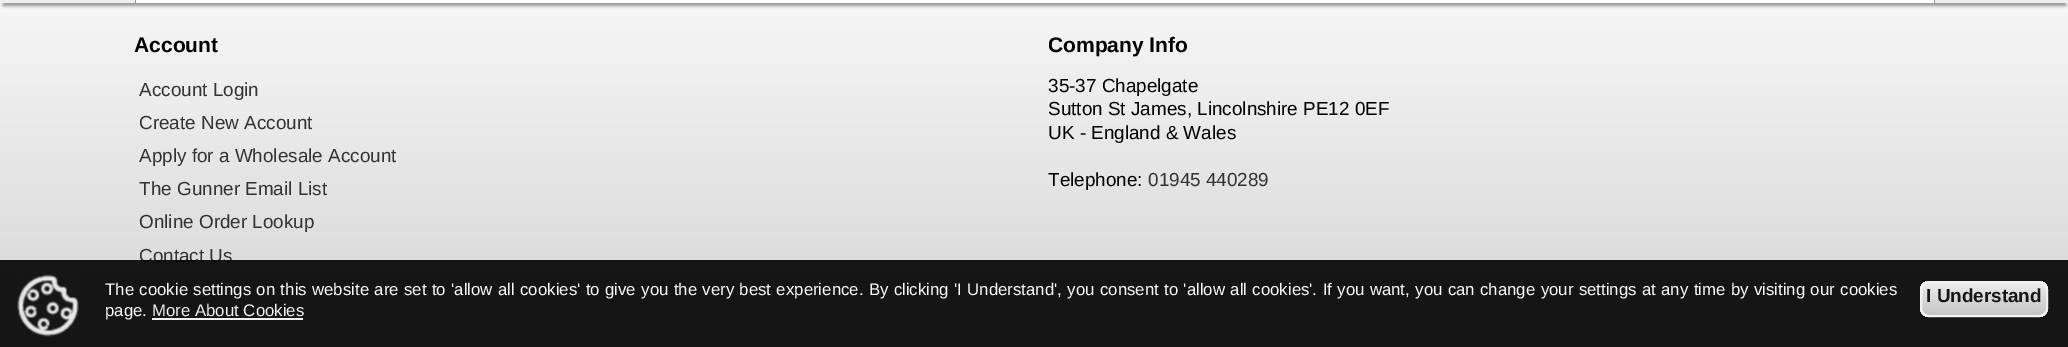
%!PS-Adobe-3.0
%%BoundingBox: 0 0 2068 347
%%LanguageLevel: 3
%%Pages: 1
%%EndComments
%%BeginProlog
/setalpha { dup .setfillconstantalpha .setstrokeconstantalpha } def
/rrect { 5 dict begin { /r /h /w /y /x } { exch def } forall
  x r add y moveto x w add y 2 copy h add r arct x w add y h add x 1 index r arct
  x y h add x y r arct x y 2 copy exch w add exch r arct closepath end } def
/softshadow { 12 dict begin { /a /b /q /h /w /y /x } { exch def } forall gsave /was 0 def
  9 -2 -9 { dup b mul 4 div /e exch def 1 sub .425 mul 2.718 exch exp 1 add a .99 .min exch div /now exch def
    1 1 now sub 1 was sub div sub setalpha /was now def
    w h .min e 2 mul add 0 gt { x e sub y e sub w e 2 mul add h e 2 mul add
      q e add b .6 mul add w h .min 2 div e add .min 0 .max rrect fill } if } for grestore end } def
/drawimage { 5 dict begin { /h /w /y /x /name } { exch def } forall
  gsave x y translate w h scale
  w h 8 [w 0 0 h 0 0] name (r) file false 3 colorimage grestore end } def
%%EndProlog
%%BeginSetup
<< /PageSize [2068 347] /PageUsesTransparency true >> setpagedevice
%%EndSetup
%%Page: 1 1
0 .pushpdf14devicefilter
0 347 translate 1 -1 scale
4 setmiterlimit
0.937 setgray
0 0 2068 347 rectfill
gsave newpath 0 3 moveto 2068 3 lineto 2068 347 lineto 0 347 lineto closepath clip newpath
<< /ShadingType 2 /ColorSpace /DeviceRGB /Coords [1034 3 1034 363] /Extend [true true] /Function << /FunctionType 2 /Domain [0 1] /C0 [0.965 0.965 0.965] /C1 [0.827 0.827 0.827] /N 1 >> >> shfill grestore
gsave
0 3 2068 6 rectclip
0.6 setgray
3 -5 2063 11 0 1.5 1 softshadow
grestore
1 setgray
135 0 1800 3 rectfill
0.6 setgray
newpath 144 -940 moveto 495 -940 lineto 495 3 lineto 135 3 lineto 135 -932 lineto 135 -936 139 -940 144 -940 curveto closepath 144 -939 moveto 495 -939 lineto 495 3 lineto 136 3 lineto 136 -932 lineto 136 -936 140 -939 144 -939 curveto closepath eofill
newpath 495 -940 moveto 1928 -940 lineto 1932 -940 1935 -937 1935 -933 curveto 1935 3 lineto 495 3 lineto closepath 495 -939 moveto 1928 -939 lineto 1931 -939 1934 -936 1934 -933 curveto 1934 3 lineto 495 3 lineto closepath eofill
/LiberationSans-Bold [21 0 0 -21 0 0] selectfont
0 setgray
134 52 moveto (Account) show
/LiberationSans-Regular [18.9 0 0 -18.9 0 0] selectfont
0.2 setgray
139 96 moveto (Account Login) show
139 129 moveto (Create New Account) show
139 162 moveto (Apply for a Wholesale Account) show
139 195 moveto (The Gunner Email List) show
139 228 moveto (Online Order Lookup) show
139 262 moveto (Contact Us) show
gsave
1049 24 886 42 rectclip
/LiberationSans-Bold [21 0 0 -21 0 0] selectfont
0 setgray
1048 52 moveto (Company Info) show
grestore
0 setgray
1048 92 moveto (35-37 Chapelgate) show
1048 115 moveto (Sutton St James, Lincolnshire PE12 0EF) show
1048 139 moveto (UK - England & Wales) show
1048 186 moveto (Telephone:) show
0.2 setgray
1148 186 moveto (01945 440289) show
0.9 setalpha
0 setgray
0 260 2068 87 rectfill
1 setalpha
(images/1.raw) 17 274 62 63 drawimage
/LiberationSans-Regular [16.8 0 0 -16.8 0 0] selectfont
0.984 setgray
105 295 moveto 0.7 0 32 (The cookie settings on this website are set to 'allow all cookies' to give you the very best experience. By clicking 'I Understand', you consent to 'allow all cookies'. If you want, you can change your settings at any time by visiting our cookies) widthshow
105 316 moveto (page.) show
0.945 setgray
152 316 moveto (More About Cookies) show
152 318 151 2 rectfill
0.871 setgray
1920 281 128 36 9 rrect fill
gsave
1920 281 128 36 9 rrect clip newpath
gsave newpath 1920 281 moveto 2048 281 lineto 2048 282 lineto 1920 282 lineto closepath clip newpath
<< /ShadingType 2 /ColorSpace /DeviceRGB /Coords [1984 249 1984 282] /Extend [true true] /Function << /FunctionType 2 /Domain [0 1] /C0 [0.925 0.925 0.925] /C1 [0.773 0.773 0.773] /N 1 >> >> shfill grestore
0.9 setalpha
gsave newpath 1920 282 moveto 2048 282 lineto 2048 315 lineto 1920 315 lineto closepath clip newpath
<< /ShadingType 2 /ColorSpace /DeviceRGB /Coords [1984 282 1984 315] /Extend [true true] /Function << /FunctionType 2 /Domain [0 1] /C0 [0.933 0.933 0.933] /C1 [0.761 0.761 0.761] /N 1 >> >> shfill grestore
1 setalpha
gsave newpath 1920 315 moveto 2048 315 lineto 2048 317 lineto 1920 317 lineto closepath clip newpath
<< /ShadingType 2 /ColorSpace /DeviceRGB /Coords [1984 315 1984 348] /Extend [true true] /Function << /FunctionType 2 /Domain [0 1] /C0 [0.925 0.925 0.925] /C1 [0.769 0.769 0.769] /N 1 >> >> shfill grestore
grestore
0.9 setalpha
0.957 setgray
2 setlinewidth
1921 282 126 34 8 rrect stroke
/LiberationSans-Bold [18.9 0 0 -18.9 0 0] selectfont
1 setalpha
0.086 setgray
1926 302 moveto (I Understand) show
.poppdf14devicefilter showpage
%%EOF
